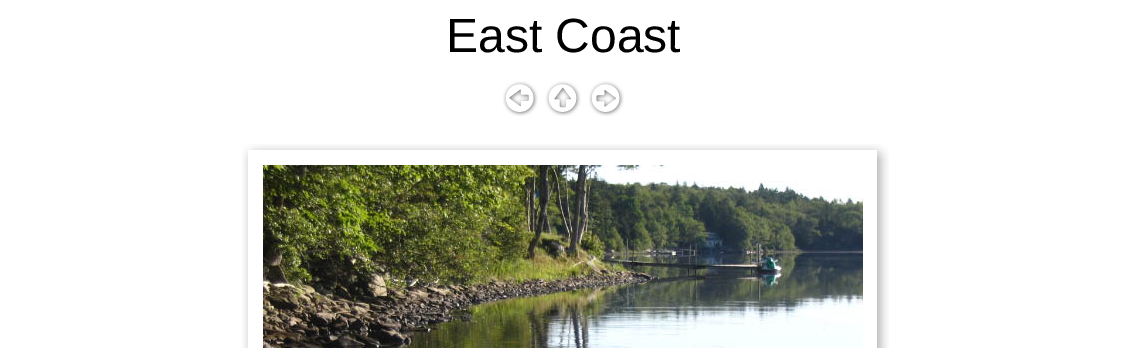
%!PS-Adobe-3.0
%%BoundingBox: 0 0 1127 348
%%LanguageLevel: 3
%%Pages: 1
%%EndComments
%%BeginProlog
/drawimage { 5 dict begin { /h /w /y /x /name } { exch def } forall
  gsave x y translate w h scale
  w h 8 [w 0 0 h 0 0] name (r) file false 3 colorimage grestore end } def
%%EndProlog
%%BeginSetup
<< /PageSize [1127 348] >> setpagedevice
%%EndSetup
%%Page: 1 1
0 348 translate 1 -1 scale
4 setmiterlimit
1 setgray
0 0 1127 348 rectfill
(images/1.raw) 503 81 35 35 drawimage
(images/2.raw) 545 81 36 35 drawimage
(images/3.raw) 589 81 35 35 drawimage
(images/4.raw) 242 144 21 21 drawimage
(images/5.raw) 263 144 600 6 drawimage
(images/6.raw) 863 144 26 21 drawimage
(images/7.raw) 242 165 6 183 drawimage
(images/8.raw) 263 165 600 183 drawimage
(images/9.raw) 877 165 12 183 drawimage
/LiberationSans-Regular [48 0 0 -48 0 0] selectfont
0 setgray
446 52 moveto (East Coast) show
showpage
%%EOF
